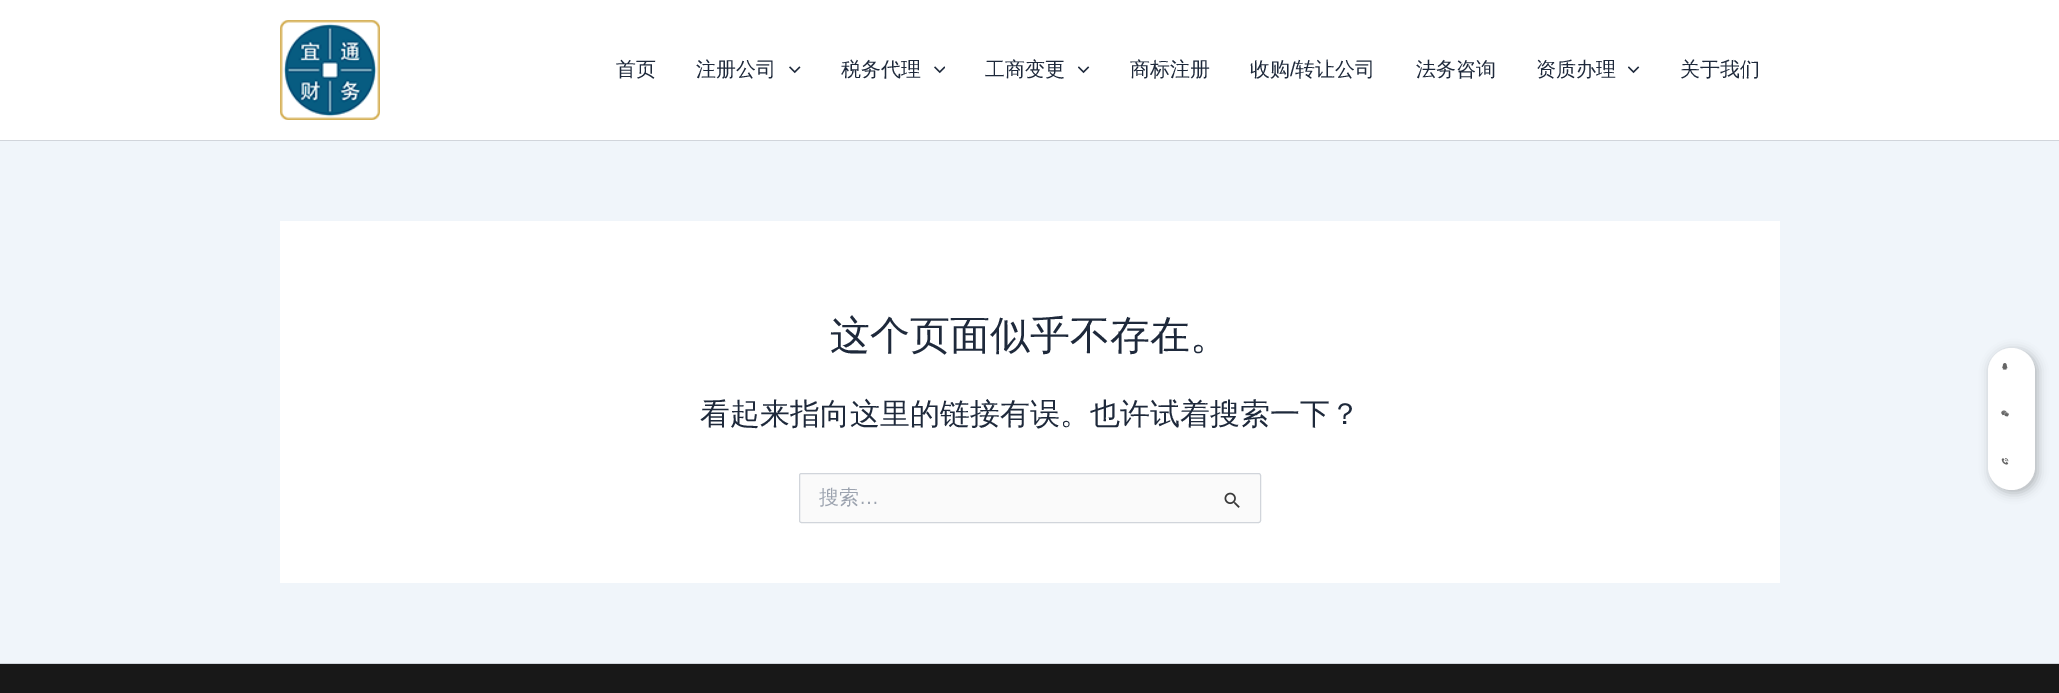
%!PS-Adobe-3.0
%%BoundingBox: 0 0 2059 693
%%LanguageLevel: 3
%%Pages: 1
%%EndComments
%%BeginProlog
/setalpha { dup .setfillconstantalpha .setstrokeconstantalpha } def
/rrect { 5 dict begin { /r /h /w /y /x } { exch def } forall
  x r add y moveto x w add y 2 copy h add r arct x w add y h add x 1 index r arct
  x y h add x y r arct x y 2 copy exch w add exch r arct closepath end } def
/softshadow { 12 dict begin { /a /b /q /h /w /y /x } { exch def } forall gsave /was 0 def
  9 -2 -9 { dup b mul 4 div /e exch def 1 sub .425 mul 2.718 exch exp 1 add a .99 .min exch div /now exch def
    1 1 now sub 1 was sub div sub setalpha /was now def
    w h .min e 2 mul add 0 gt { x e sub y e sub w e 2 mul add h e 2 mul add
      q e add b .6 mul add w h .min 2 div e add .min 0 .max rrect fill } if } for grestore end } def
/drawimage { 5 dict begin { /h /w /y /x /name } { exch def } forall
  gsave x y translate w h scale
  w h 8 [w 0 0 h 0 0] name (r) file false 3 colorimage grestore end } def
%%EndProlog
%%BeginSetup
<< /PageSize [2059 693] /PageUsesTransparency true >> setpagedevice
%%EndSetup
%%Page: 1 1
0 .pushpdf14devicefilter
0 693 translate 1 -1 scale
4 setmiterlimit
0.941 0.961 0.98 setrgbcolor
0 0 2059 693 rectfill
1 setgray
0 0 2059 140 rectfill
0.82 0.835 0.859 setrgbcolor
0 140 2059 1 rectfill
(images/1.raw) 280 20 100 100 drawimage
(images/2.raw) 789 66 12 8 drawimage
(images/3.raw) 934 66 11 8 drawimage
(images/4.raw) 1078 66 12 8 drawimage
(images/4.raw) 1628 66 12 8 drawimage
1 setgray
280 221 1500 362 rectfill
0.98 setgray
799.5 473.5 461 49 2 rrect gsave fill grestore
0.82 0.835 0.859 setrgbcolor
stroke
(images/5.raw) 1224 492 16 16 drawimage
0.094 setgray
0 664 2059 29 rectfill
0.82 0.835 0.859 setrgbcolor
0 663 2059 1 rectfill
0 setgray
1990 350 48 143 24 5 0.25 softshadow
1 setgray
newpath 2011.5 348 moveto 2024.5 348 2035 358.5 2035 371.5 curveto 2035 395 lineto 1988 395 lineto 1988 371.5 lineto 1988 358.5 1998.5 348 2011.5 348 curveto closepath fill
(images/6.raw) 2002 363 6 7 drawimage
1988 395 47 48 rectfill
(images/7.raw) 2001 410 8 7 drawimage
newpath 1988 443 moveto 2035 443 lineto 2035 466.5 lineto 2035 479.5 2024.5 490 2011.5 490 curveto 1998.5 490 1988 479.5 1988 466.5 curveto closepath fill
(images/8.raw) 2001 458 8 7 drawimage
/WenQuanYiZenHei-Medium [20 0 0 -20 0 0] selectfont
0.118 0.161 0.231 setrgbcolor
616 76 moveto (首页) show
696 76 moveto (注册公司) show
841 76 moveto (税务代理) show
985 76 moveto (工商变更) show
1130 76 moveto (商标注册) show
1250 76 moveto (收购) show
/LiberationSans-Regular [20 0 0 -20 0 0] selectfont
1290 76 moveto (/) show
/WenQuanYiZenHei-Medium [20 0 0 -20 0 0] selectfont
1295 76 moveto (转让公司) show
1416 76 moveto (法务咨询) show
1536 76 moveto (资质办理) show
1680 76 moveto (关于我们) show
/WenQuanYiZenHei-Medium [40 0 0 -40 0 0] selectfont
830 349 moveto (这个页面似乎不存在。) show
/WenQuanYiZenHei-Medium [30 0 0 -30 0 0] selectfont
700 424 moveto (看起来指向这里的链接有误。也许试着搜索一下？) show
/WenQuanYiZenHei-Medium [20 0 0 -20 0 0] selectfont
0.612 0.639 0.686 setrgbcolor
819 504 moveto (搜索) show
/LiberationSans-Regular [20 0 0 -20 0 0] selectfont
859 504 moveto (…) show
.poppdf14devicefilter showpage
%%EOF
